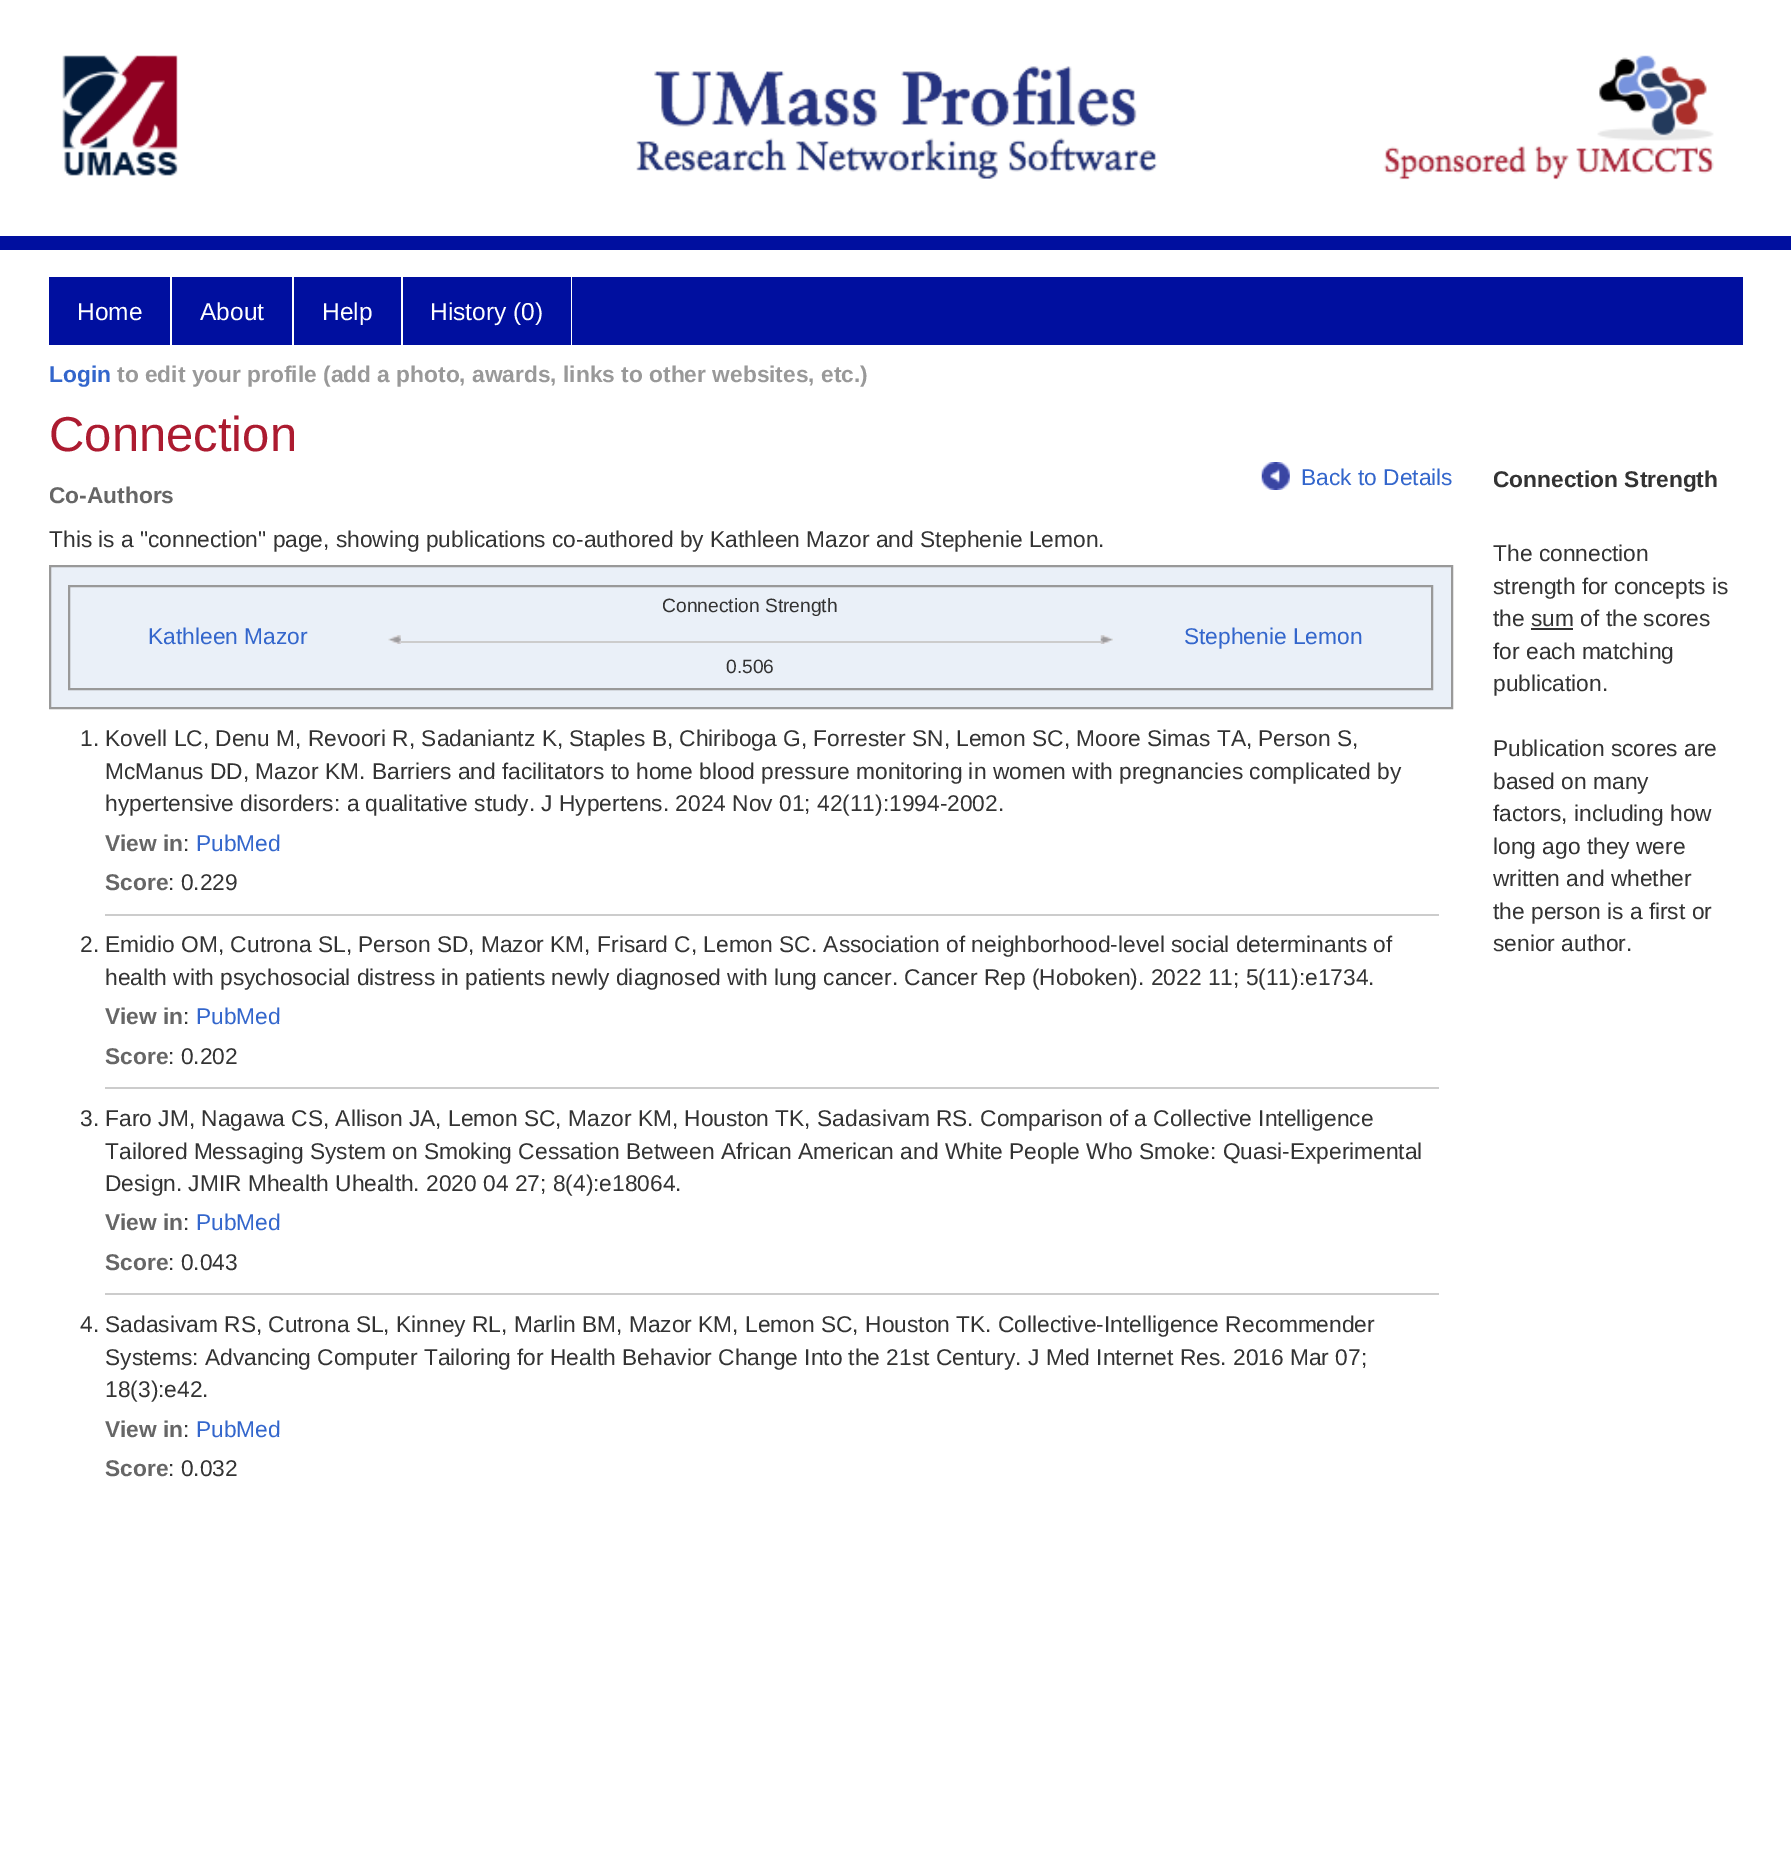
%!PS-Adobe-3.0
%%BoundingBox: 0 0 1791 1876
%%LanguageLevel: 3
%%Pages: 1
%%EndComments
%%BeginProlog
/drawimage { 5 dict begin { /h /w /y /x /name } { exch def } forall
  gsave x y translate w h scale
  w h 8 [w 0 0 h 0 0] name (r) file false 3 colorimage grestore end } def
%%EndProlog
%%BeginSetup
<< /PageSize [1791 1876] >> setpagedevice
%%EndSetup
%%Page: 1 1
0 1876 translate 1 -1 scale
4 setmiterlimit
1 setgray
0 0 1791 1876 rectfill
0 0.059 0.624 setrgbcolor
0 236 1791 14 rectfill
(images/1.raw) 62 55 1652 125 drawimage
49 277 1694 68 rectfill
1 setgray
170 277 2 68 rectfill
292 277 2 68 rectfill
401 277 2 68 rectfill
571 277 1 68 rectfill
(images/2.raw) 1261 462 29 28 drawimage
0.918 0.941 0.973 setrgbcolor
newpath 50 566 moveto 1452 566 lineto 1452 708 lineto 50 708 lineto closepath gsave fill grestore
0.6 setgray
2 setlinewidth
stroke
69 586 1363 103 rectstroke
(images/3.raw) 388 635 13 9 drawimage
(images/4.raw) 1100 635 13 9 drawimage
0.8 setgray
401 641 700 2 rectfill
105 914 1334 2 rectfill
105 1087 1334 2 rectfill
105 1293 1334 2 rectfill
0.2 setgray
1531 628 42 2 rectfill
/LiberationSans-Regular [24.5 0 0 -24.5 0 0] selectfont
1 setgray
77 320 moveto (Home) show
200 320 moveto (About) show
322 320 moveto (Help) show
430 320 moveto (History \(0\)) show
/LiberationSans-Bold [22.75 0 0 -22.75 0 0] selectfont
0.2 0.4 0.8 setrgbcolor
49 382 moveto (Login) show
0.6 setgray
117 382 moveto (to edit your profile \(add a photo, awards, links to other websites, etc.\)) show
/LiberationSans-Regular [49 0 0 -49 0 0] selectfont
0.675 0.106 0.188 setrgbcolor
49 451 moveto (Connection) show
/LiberationSans-Regular [22.75 0 0 -22.75 0 0] selectfont
0.2 0.4 0.8 setrgbcolor
1301 485 moveto (Back to Details) show
/LiberationSans-Bold [22.75 0 0 -22.75 0 0] selectfont
0.4 setgray
49 503 moveto (Co-Authors) show
/LiberationSans-Regular [22.75 0 0 -22.75 0 0] selectfont
0.2 setgray
49 547 moveto (This is a "connection" page, showing publications co-authored by Kathleen Mazor and Stephenie Lemon.) show
0.2 0.4 0.8 setrgbcolor
148 644 moveto (Kathleen Mazor) show
/LiberationSans-Regular [19.25 0 0 -19.25 0 0] selectfont
0.2 setgray
662 612 moveto (Connection Strength) show
726 673 moveto (0.506) show
/LiberationSans-Regular [22.75 0 0 -22.75 0 0] selectfont
0.2 0.4 0.8 setrgbcolor
1184 644 moveto (Stephenie Lemon) show
0.2 setgray
80 746 moveto (1. Kovell LC, Denu M, Revoori R, Sadaniantz K, Staples B, Chiriboga G, Forrester SN, Lemon SC, Moore Simas TA, Person S,) show
105 779 moveto (McManus DD, Mazor KM. Barriers and facilitators to home blood pressure monitoring in women with pregnancies complicated by) show
105 811 moveto (hypertensive disorders: a qualitative study. J Hypertens. 2024 Nov 01; 42\(11\):1994-2002.) show
/LiberationSans-Bold [22.75 0 0 -22.75 0 0] selectfont
0.4 setgray
105 851 moveto (View in) show
/LiberationSans-Regular [22.75 0 0 -22.75 0 0] selectfont
0.2 setgray
183 851 moveto (:) show
0.2 0.4 0.8 setrgbcolor
196 851 moveto (PubMed) show
/LiberationSans-Bold [22.75 0 0 -22.75 0 0] selectfont
0.4 setgray
105 890 moveto (Score) show
/LiberationSans-Regular [22.75 0 0 -22.75 0 0] selectfont
0.2 setgray
168 890 moveto (: 0.229) show
80 952 moveto (2. Emidio OM, Cutrona SL, Person SD, Mazor KM, Frisard C, Lemon SC. Association of neighborhood-level social determinants of) show
105 985 moveto (health with psychosocial distress in patients newly diagnosed with lung cancer. Cancer Rep \(Hoboken\). 2022 11; 5\(11\):e1734.) show
/LiberationSans-Bold [22.75 0 0 -22.75 0 0] selectfont
0.4 setgray
105 1024 moveto (View in) show
/LiberationSans-Regular [22.75 0 0 -22.75 0 0] selectfont
0.2 setgray
183 1024 moveto (:) show
0.2 0.4 0.8 setrgbcolor
196 1024 moveto (PubMed) show
/LiberationSans-Bold [22.75 0 0 -22.75 0 0] selectfont
0.4 setgray
105 1064 moveto (Score) show
/LiberationSans-Regular [22.75 0 0 -22.75 0 0] selectfont
0.2 setgray
168 1064 moveto (: 0.202) show
80 1126 moveto (3. Faro JM, Nagawa CS, Allison JA, Lemon SC, Mazor KM, Houston TK, Sadasivam RS. Comparison of a Collective Intelligence) show
105 1159 moveto (Tailored Messaging System on Smoking Cessation Between African American and White People Who Smoke: Quasi-Experimental) show
105 1191 moveto (Design. JMIR Mhealth Uhealth. 2020 04 27; 8\(4\):e18064.) show
/LiberationSans-Bold [22.75 0 0 -22.75 0 0] selectfont
0.4 setgray
105 1230 moveto (View in) show
/LiberationSans-Regular [22.75 0 0 -22.75 0 0] selectfont
0.2 setgray
183 1230 moveto (:) show
0.2 0.4 0.8 setrgbcolor
196 1230 moveto (PubMed) show
/LiberationSans-Bold [22.75 0 0 -22.75 0 0] selectfont
0.4 setgray
105 1270 moveto (Score) show
/LiberationSans-Regular [22.75 0 0 -22.75 0 0] selectfont
0.2 setgray
168 1270 moveto (: 0.043) show
80 1332 moveto (4. Sadasivam RS, Cutrona SL, Kinney RL, Marlin BM, Mazor KM, Lemon SC, Houston TK. Collective-Intelligence Recommender) show
105 1365 moveto (Systems: Advancing Computer Tailoring for Health Behavior Change Into the 21st Century. J Med Internet Res. 2016 Mar 07;) show
105 1397 moveto (18\(3\):e42.) show
/LiberationSans-Bold [22.75 0 0 -22.75 0 0] selectfont
0.4 setgray
105 1437 moveto (View in) show
/LiberationSans-Regular [22.75 0 0 -22.75 0 0] selectfont
0.2 setgray
183 1437 moveto (:) show
0.2 0.4 0.8 setrgbcolor
196 1437 moveto (PubMed) show
/LiberationSans-Bold [22.75 0 0 -22.75 0 0] selectfont
0.4 setgray
105 1476 moveto (Score) show
/LiberationSans-Regular [22.75 0 0 -22.75 0 0] selectfont
0.2 setgray
168 1476 moveto (: 0.032) show
/LiberationSans-Bold [22.75 0 0 -22.75 0 0] selectfont
1493 487 moveto (Connection Strength) show
/LiberationSans-Regular [22.75 0 0 -22.75 0 0] selectfont
1493 561 moveto (The connection) show
1493 594 moveto (strength for concepts is) show
1493 626 moveto (the sum of the scores) show
1493 659 moveto (for each matching) show
1493 691 moveto (publication.) show
1493 756 moveto (Publication scores are) show
1493 789 moveto (based on many) show
1493 821 moveto (factors, including how) show
1493 854 moveto (long ago they were) show
1493 886 moveto (written and whether) show
1493 919 moveto (the person is a first or) show
1493 951 moveto (senior author.) show
showpage
%%EOF
